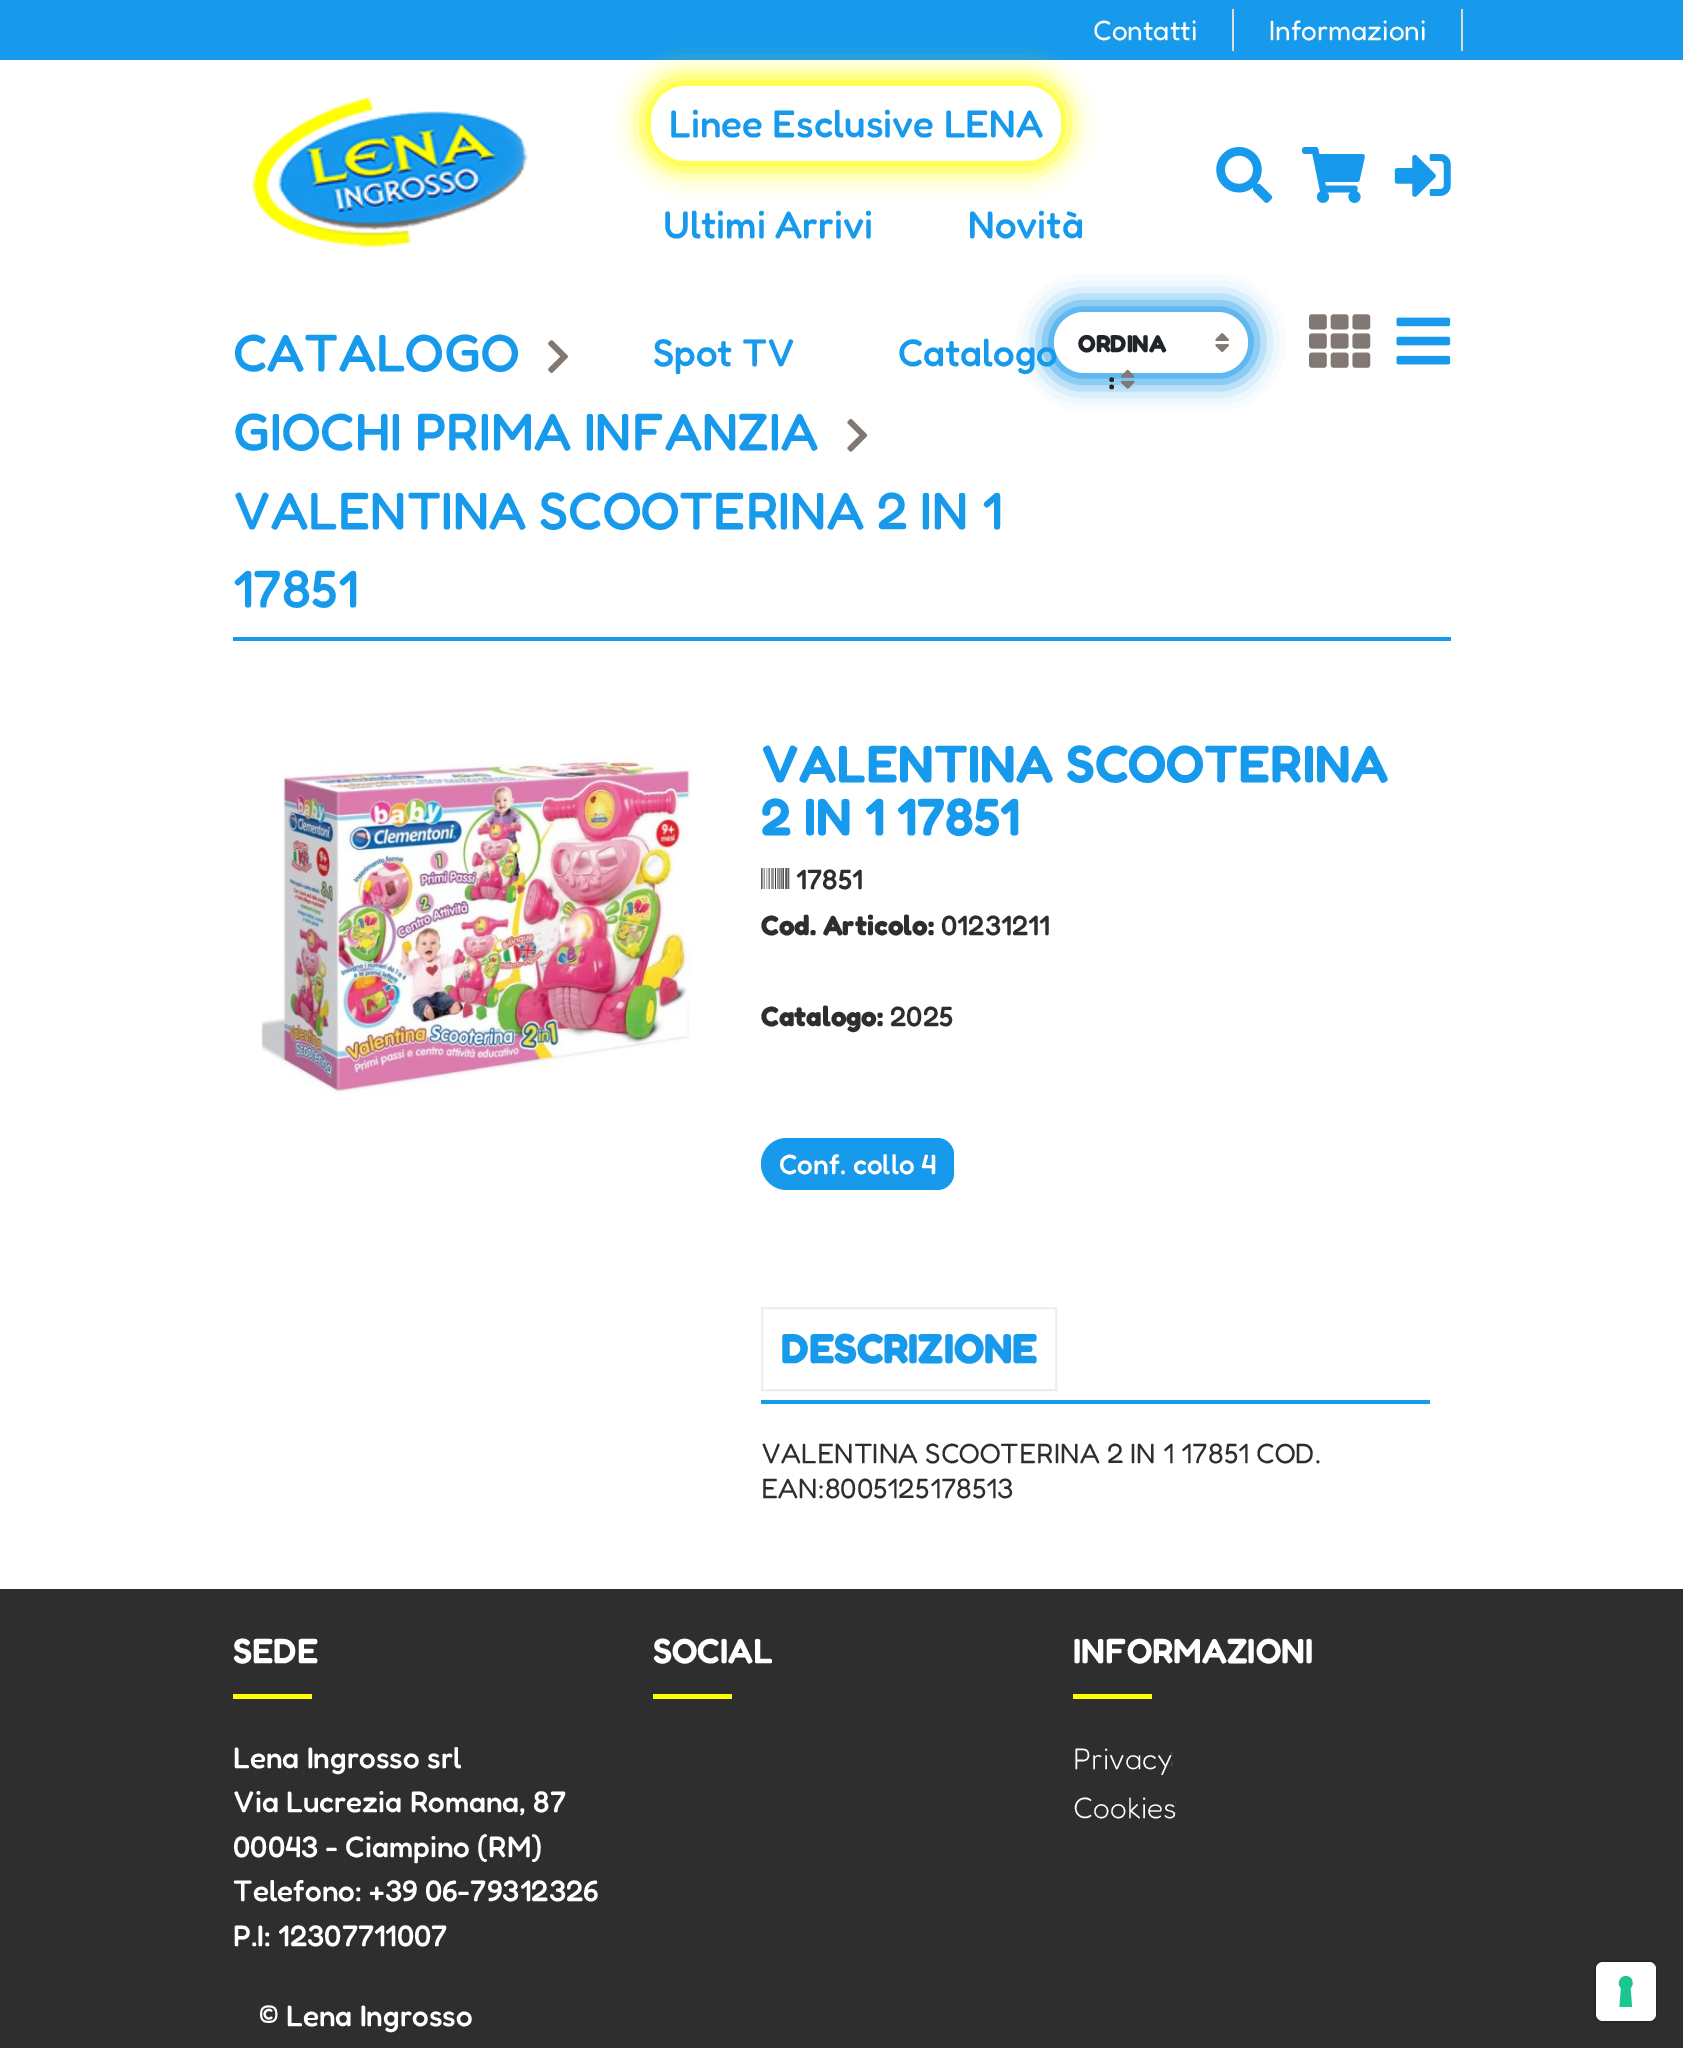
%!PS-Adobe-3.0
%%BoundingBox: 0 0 1683 2048
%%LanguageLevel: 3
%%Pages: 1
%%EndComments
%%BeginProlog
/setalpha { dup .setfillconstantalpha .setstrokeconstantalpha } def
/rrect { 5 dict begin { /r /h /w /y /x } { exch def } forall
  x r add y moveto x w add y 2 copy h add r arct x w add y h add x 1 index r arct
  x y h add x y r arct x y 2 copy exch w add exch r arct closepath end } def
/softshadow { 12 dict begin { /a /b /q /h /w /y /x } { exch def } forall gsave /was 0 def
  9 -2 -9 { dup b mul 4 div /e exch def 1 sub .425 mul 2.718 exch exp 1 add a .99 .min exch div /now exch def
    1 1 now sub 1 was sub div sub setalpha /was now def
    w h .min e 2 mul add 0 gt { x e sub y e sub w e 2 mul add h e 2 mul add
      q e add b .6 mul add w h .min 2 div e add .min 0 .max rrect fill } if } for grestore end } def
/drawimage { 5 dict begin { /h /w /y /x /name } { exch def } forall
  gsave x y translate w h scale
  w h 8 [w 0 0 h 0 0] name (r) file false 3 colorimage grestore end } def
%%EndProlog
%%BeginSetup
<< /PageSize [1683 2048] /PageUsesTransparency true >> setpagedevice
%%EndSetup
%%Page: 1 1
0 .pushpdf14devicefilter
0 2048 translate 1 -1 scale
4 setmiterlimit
1 setgray
0 0 1683 2048 rectfill
0.09 0.604 0.925 setrgbcolor
0 0 1683 60 rectfill
0.867 setgray
1232 9 2 42 rectfill
1461 9 2 42 rectfill
(images/1.raw) 251 96 277 152 drawimage
0.996 1 0.012 setrgbcolor
642 77 427 93 44 13 1 softshadow
1 setgray
651 86 410 75 35 rrect fill
(images/2.raw) 1216 147 57 56 drawimage
(images/3.raw) 1302 147 63 56 drawimage
(images/4.raw) 1394 154 57 43 drawimage
0.09 0.604 0.925 setrgbcolor
233 637 1218 4 rectfill
(images/5.raw) 548 340 20 33 drawimage
(images/6.raw) 847 419 21 33 drawimage
0.094 0.604 0.922 setrgbcolor
1045 303 212 79 39.5 13 1 softshadow
(images/9.raw) 1309 314 62 54 drawimage
(images/10.raw) 1396 317 55 48 drawimage
(images/11.raw) 261 757 430 338 drawimage
(images/12.raw) 761 868 29 21 drawimage
0.09 0.604 0.925 setrgbcolor
newpath 787 1138 moveto 921 1138 lineto 921 1190 lineto 787 1190 lineto 772.5 1190 761 1178.5 761 1164 curveto 761 1149.5 772.5 1138 787 1138 curveto closepath fill
newpath 921 1138 moveto 937.5 1138 lineto 946.5 1138 954 1145.5 954 1154.5 curveto 954 1173.5 lineto 954 1182.5 946.5 1190 937.5 1190 curveto 921 1190 lineto closepath fill
761 1400 669 4 rectfill
0.933 setgray
2 setlinewidth
762 1308 294 82 rectstroke
0.18 setgray
0 1589 1683 459 rectfill
0.996 1 0.012 setrgbcolor
233 1694 79 5 rectfill
653 1694 79 5 rectfill
1073 1694 79 5 rectfill
(images/13.raw) 1170 1751 3 15 drawimage
(images/14.raw) 1175 1800 1 15 drawimage
0.153 setgray
1595 1961 61 61 8 rrect stroke
1 setgray
1596 1962 60 59 7 rrect fill
0.11 0.776 0.569 setrgbcolor
newpath 1626 1976 moveto 1632 1976 1635 1984 1630.5 1988 curveto 1632 2007 lineto 1619.5 2007 lineto 1621 1988 lineto 1616.5 1984 1619.5 1976 1626 1976 curveto closepath eofill
/Fredoka-Regular [28 0 0 -28 0 0] selectfont
1 setgray
1093 40 moveto (Contatti) show
1269 40 moveto (Informazioni) show
/Fredoka-Medium [38.5 0 0 -38.5 0 0] selectfont
0.09 0.604 0.925 setrgbcolor
669 137 moveto (Linee Esclusive LENA) show
663 238 moveto (Ultimi Arrivi) show
968 238 moveto (Novità) show
653 366 moveto (Spot TV) show
898 366 moveto (Catalogo) show
/Fredoka-Medium [52.5 0 0 -52.5 0 0] selectfont
233 371 moveto (CATALOGO) show
233 450 moveto (GIOCHI PRIMA INFANZIA) show
233 529 moveto (VALENTINA SCOOTERINA 2 IN 1) show
233 607 moveto (17851) show
1 setgray
1054 312 194 61 30.5 rrect fill
/Fredoka-Bold [24.5 0 0 -24.5 0 0] selectfont
0.129 0.145 0.161 setrgbcolor
1078 352 moveto (ORDINA) show
1109 389 moveto (:) show
(images/7.raw) 1120 369 15 20 drawimage
(images/8.raw) 1215 333 14 19 drawimage
/Fredoka-SemiBold [52.5 0 0 -52.5 0 0] selectfont
0.09 0.604 0.925 setrgbcolor
761 782 moveto (VALENTINA SCOOTERINA) show
761 835 moveto (2 IN 1 17851) show
/Fredoka-Medium [28 0 0 -28 0 0] selectfont
0.18 setgray
796 889 moveto (17851) show
/Fredoka-Bold [28 0 0 -28 0 0] selectfont
761 935 moveto (Cod. Articolo:) show
/Fredoka-Medium [28 0 0 -28 0 0] selectfont
941 935 moveto (01231211) show
/Fredoka-Bold [28 0 0 -28 0 0] selectfont
761 1026 moveto (Catalogo:) show
/Fredoka-Medium [28 0 0 -28 0 0] selectfont
890 1026 moveto (2025) show
1 setgray
779 1174 moveto (Conf. collo 4) show
/Fredoka-Bold [42 0 0 -42 0 0] selectfont
0.09 0.604 0.925 setrgbcolor
781 1363 moveto (DESCRIZIONE) show
/Fredoka-Regular [28 0 0 -28 0 0] selectfont
0.18 setgray
761 1463 moveto (VALENTINA SCOOTERINA 2 IN 1 17851 COD.) show
761 1498 moveto (EAN:8005125178513) show
/Fredoka-SemiBold [35 0 0 -35 0 0] selectfont
1 setgray
233 1663 moveto (SEDE) show
/Fredoka-Medium [29.75 0 0 -29.75 0 0] selectfont
233 1768 moveto (Lena Ingrosso srl) show
233 1812 moveto (Via Lucrezia Romana, 87) show
233 1857 moveto (00043 - Ciampino \(RM\)) show
233 1901 moveto (Telefono: +39 06-79312326) show
233 1946 moveto (P.I: 12307711007) show
/Fredoka-SemiBold [35 0 0 -35 0 0] selectfont
653 1663 moveto (SOCIAL) show
1073 1663 moveto (INFORMAZIONI) show
/Fredoka-Light [29.75 0 0 -29.75 0 0] selectfont
1073 1769 moveto (Privacy) show
1073 1818 moveto (Cookies) show
/Fredoka-Medium [29.75 0 0 -29.75 0 0] selectfont
259 2026 moveto (© Lena Ingrosso) show
.poppdf14devicefilter showpage
%%EOF
